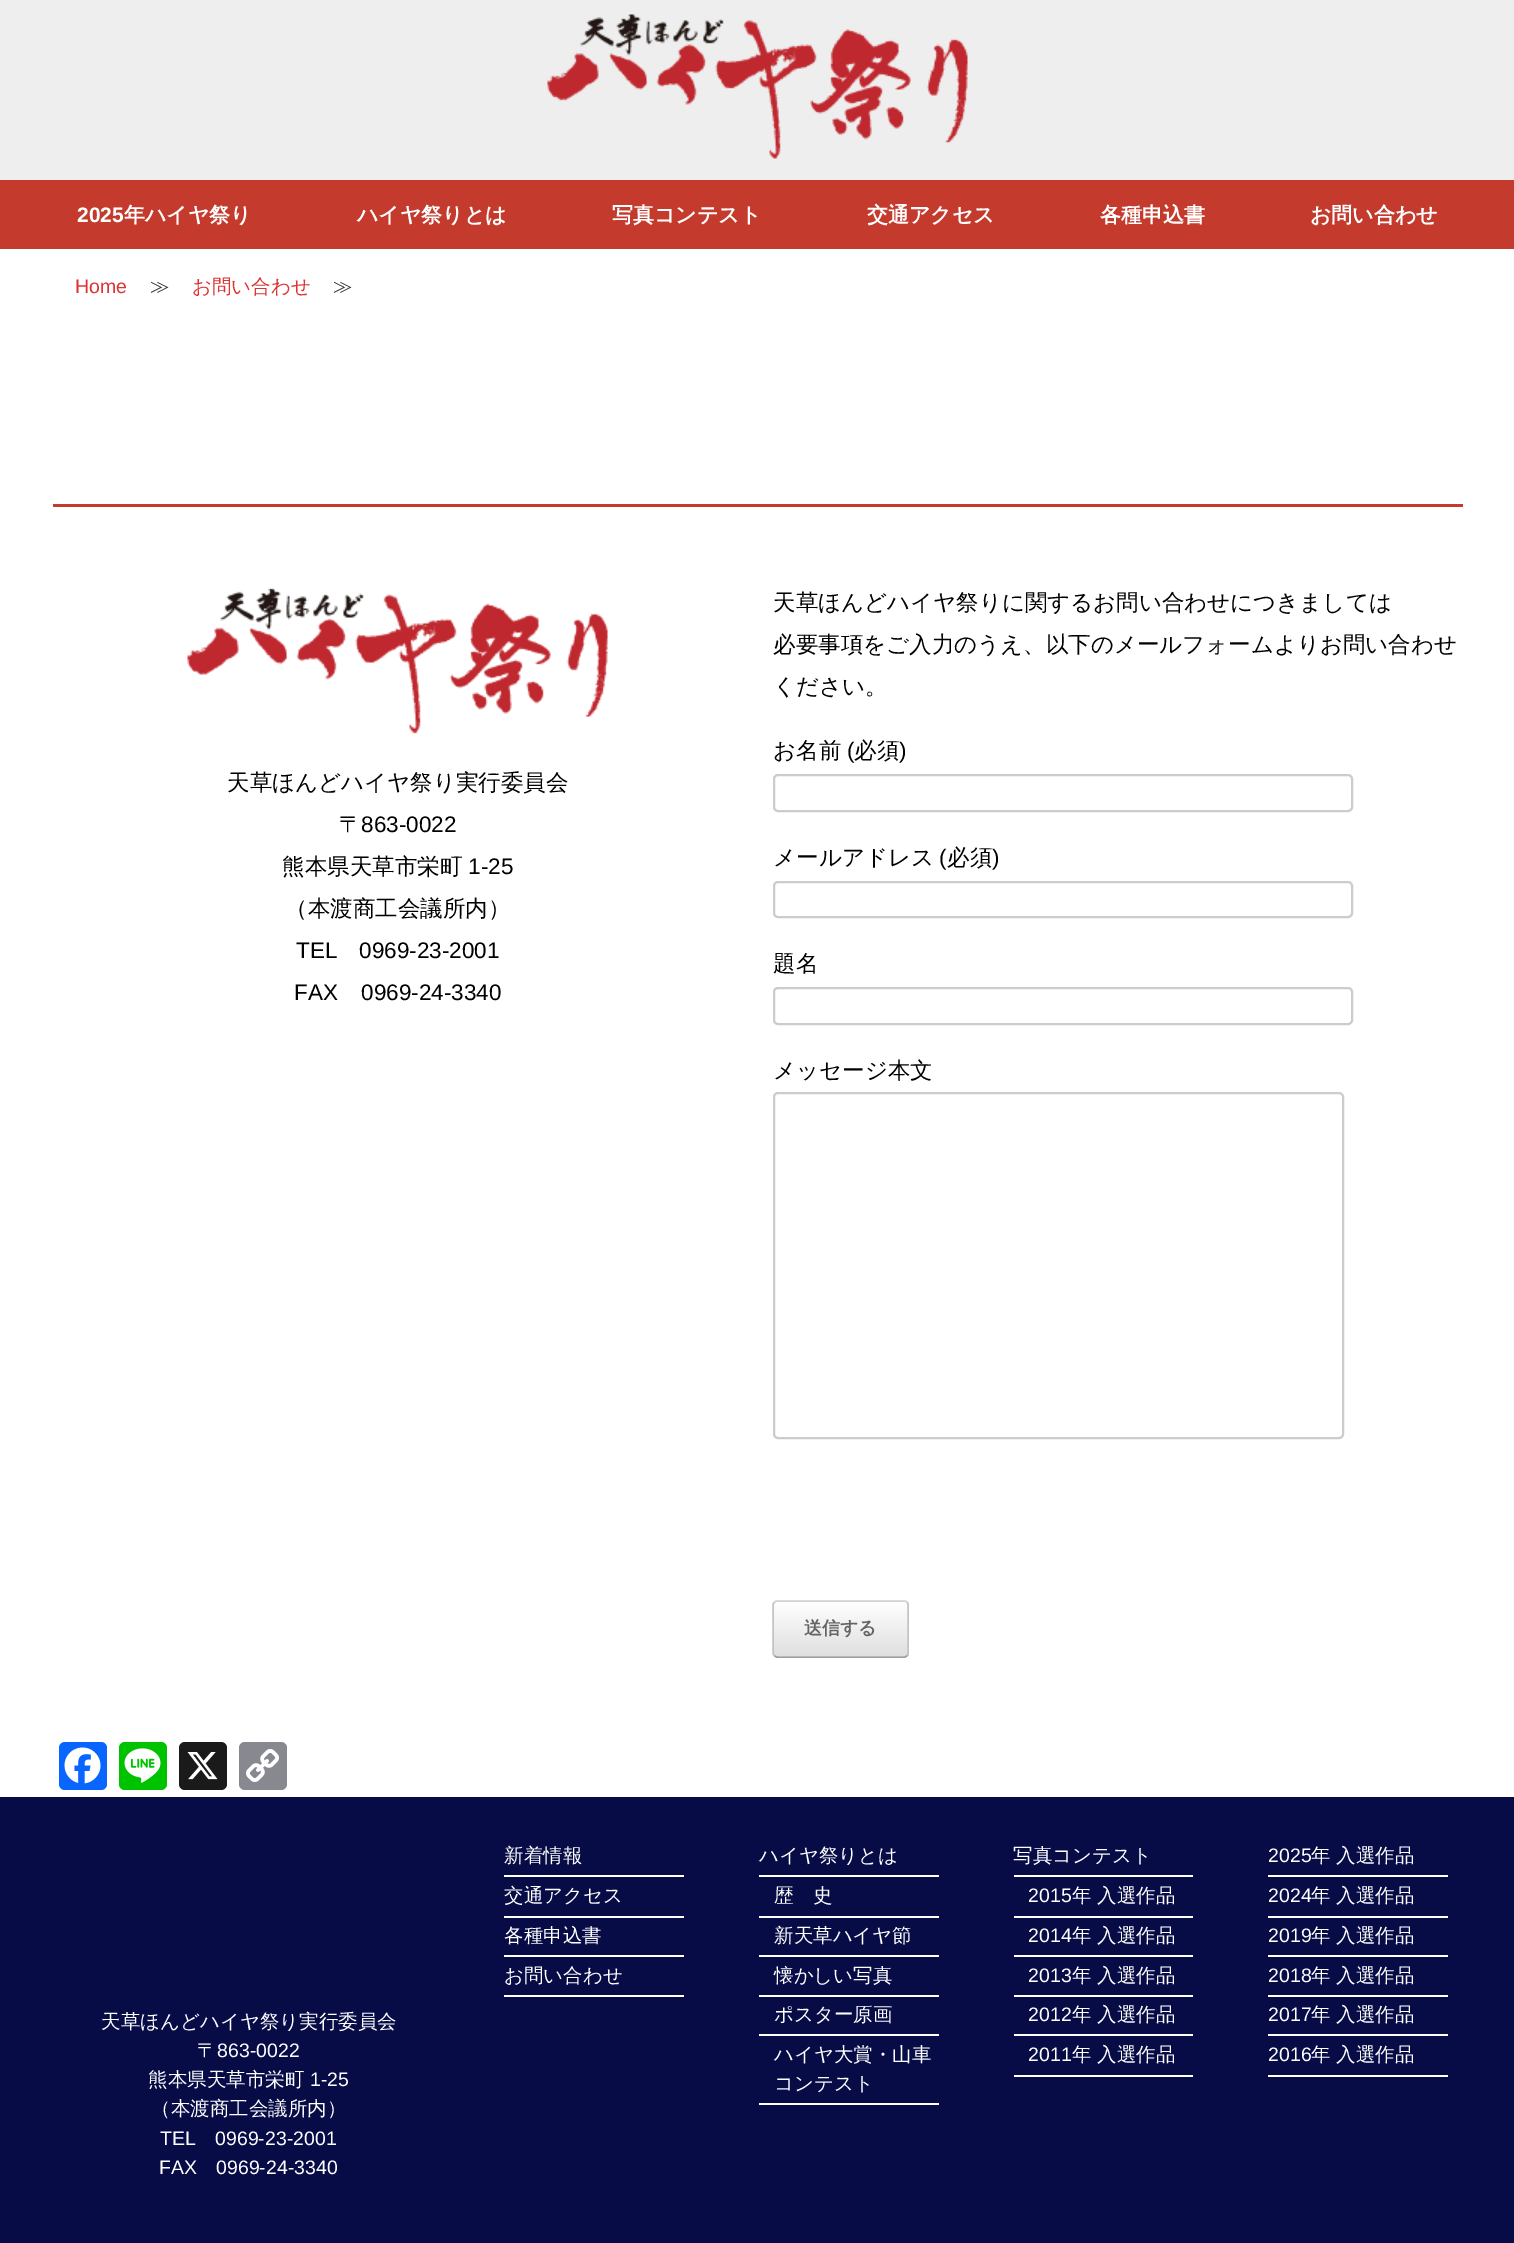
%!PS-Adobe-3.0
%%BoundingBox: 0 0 1514 2243
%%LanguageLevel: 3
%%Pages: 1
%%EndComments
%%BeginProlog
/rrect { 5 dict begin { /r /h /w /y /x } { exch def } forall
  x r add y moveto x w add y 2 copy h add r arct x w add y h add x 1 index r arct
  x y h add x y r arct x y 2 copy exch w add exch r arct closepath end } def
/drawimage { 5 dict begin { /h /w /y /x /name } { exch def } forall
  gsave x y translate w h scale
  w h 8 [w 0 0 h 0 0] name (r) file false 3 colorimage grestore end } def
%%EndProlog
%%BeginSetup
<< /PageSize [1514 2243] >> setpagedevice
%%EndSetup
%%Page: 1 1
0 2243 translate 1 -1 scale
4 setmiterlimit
0.027 0.047 0.275 setrgbcolor
0 0 1514 2243 rectfill
0.933 setgray
0 0 1514 180 rectfill
(images/1.raw) 547 14 421 145 drawimage
0.769 0.231 0.176 setrgbcolor
0 180 1514 69 rectfill
1 setgray
0 249 1514 1548 rectfill
0.769 0.231 0.176 setrgbcolor
53 504 1410 3 rectfill
(images/2.raw) 187 588 421 146 drawimage
0.8 setgray
2 setlinewidth
774 775 578 36 4 rrect stroke
774 882 578 35 4 rrect stroke
774 988 578 36 4 rrect stroke
774 1093 569 345 4 rrect stroke
gsave
773 1601 136 57 5 rrect clip newpath
gsave newpath 773 1602 moveto 909 1602 lineto 909 1656 lineto 773 1656 lineto closepath clip newpath
<< /ShadingType 2 /ColorSpace /DeviceRGB /Coords [774 1656 774 1602] /Extend [true true] /Function << /FunctionType 2 /Domain [0 1] /C0 [0.875 0.875 0.875] /C1 [1 1 1] /N 1 >> >> shfill grestore
grestore
0.824 setgray
1.5 setlinewidth
newpath 774.5 1602.5 moveto 775 1601.5 776 1601 777 1601 curveto 904.5 1601 lineto 905.5 1601 906.5 1601.5 907 1602.5 curveto stroke
0.765 setgray
newpath 907 1602.5 moveto 908 1603 908 1604 908 1605 curveto 908 1653 lineto 908 1654 908 1655 907 1655.5 curveto stroke
0.624 setgray
newpath 907 1655.5 moveto 906.5 1656.5 905.5 1657 904.5 1657 curveto 777 1657 lineto 776 1657 775 1656.5 774.5 1655.5 curveto stroke
0.765 setgray
newpath 774.5 1655.5 moveto 773.5 1655 773 1654 773 1653 curveto 773 1605 lineto 773 1604 773.5 1603 774.5 1602.5 curveto stroke
0.031 0.4 1 setrgbcolor
59 1742 48 48 6 rrect fill
(images/3.raw) 64 1747 37 37 drawimage
0 0.765 0 setrgbcolor
119 1742 48 48 6 rrect fill
(images/4.raw) 124 1748 37 35 drawimage
0.102 setgray
179 1742 48 48 6 rrect fill
(images/5.raw) 187 1752 31 28 drawimage
0.533 0.537 0.565 setrgbcolor
239 1742 48 48 6 rrect fill
(images/6.raw) 246 1749 33 33 drawimage
1 setgray
504 1875 180 2 rectfill
504 1916 180 2 rectfill
504 1955 180 2 rectfill
504 1995 180 2 rectfill
759 1875 180 2 rectfill
759 1916 180 2 rectfill
759 1955 180 2 rectfill
759 1995 180 2 rectfill
759 2034 180 2 rectfill
759 2103 180 2 rectfill
1014 1875 179 2 rectfill
1014 1916 179 2 rectfill
1014 1955 179 2 rectfill
1014 1995 179 2 rectfill
1014 2034 179 2 rectfill
1014 2075 179 2 rectfill
1268 1875 180 2 rectfill
1268 1916 180 2 rectfill
1268 1955 180 2 rectfill
1268 1995 180 2 rectfill
1268 2034 180 2 rectfill
1268 2075 180 2 rectfill
/LiberationSans-Bold [21 0 0 -21 0 0] selectfont
77 222 moveto (2025) show
/WenQuanYiZenHei-Bold [21 0 0 -21 0 0] selectfont
124 222 moveto (年ハイヤ祭り) show
357 222 moveto (ハイヤ祭りとは) show
612 222 moveto (写真コンテスト) show
867 222 moveto (交通アクセス) show
1100 222 moveto (各種申込書) show
1310 222 moveto (お問い合わせ) show
/LiberationSans-Regular [19.5 0 0 -19.5 0 0] selectfont
0.867 0.2 0.2 setrgbcolor
75 293 moveto (Home) show
/WenQuanYiZenHei-Medium [19.5 0 0 -19.5 0 0] selectfont
0.2 setgray
150 293 moveto (≫) show
0.867 0.2 0.2 setrgbcolor
192 293 moveto (お問い合わせ) show
0.2 setgray
333 293 moveto (≫) show
/WenQuanYiZenHei-Medium [22.5 0 0 -22.5 0 0] selectfont
0 setgray
227 790 moveto (天草ほんどハイヤ祭り実行委員会) show
339 832 moveto (〒) show
/LiberationSans-Regular [22.5 0 0 -22.5 0 0] selectfont
361 832 moveto (863-0022) show
/WenQuanYiZenHei-Medium [22.5 0 0 -22.5 0 0] selectfont
282 874 moveto (熊本県天草市栄町) show
/LiberationSans-Regular [22.5 0 0 -22.5 0 0] selectfont
468 874 moveto (1-25) show
/WenQuanYiZenHei-Medium [22.5 0 0 -22.5 0 0] selectfont
285 916 moveto (（本渡商工会議所内）) show
/LiberationSans-Regular [22.5 0 0 -22.5 0 0] selectfont
296 958 moveto (TEL) show
359 958 moveto (0969-23-2001) show
294 1000 moveto (FAX) show
361 1000 moveto (0969-24-3340) show
/WenQuanYiZenHei-Medium [22.5 0 0 -22.5 0 0] selectfont
773 610 moveto (天草ほんどハイヤ祭りに関するお問い合わせにつきましては) show
773 652 moveto (必要事項をご入力のうえ、以下のメールフォームよりお問い合わせ) show
773 694 moveto (ください。) show
773 758 moveto (お名前) show
/LiberationSans-Regular [22.5 0 0 -22.5 0 0] selectfont
847 758 moveto (\() show
/WenQuanYiZenHei-Medium [22.5 0 0 -22.5 0 0] selectfont
854 758 moveto (必須) show
/LiberationSans-Regular [22.5 0 0 -22.5 0 0] selectfont
899 758 moveto (\)) show
/WenQuanYiZenHei-Medium [22.5 0 0 -22.5 0 0] selectfont
773 865 moveto (メールアドレス) show
/LiberationSans-Regular [22.5 0 0 -22.5 0 0] selectfont
939 865 moveto (\() show
/WenQuanYiZenHei-Medium [22.5 0 0 -22.5 0 0] selectfont
947 865 moveto (必須) show
/LiberationSans-Regular [22.5 0 0 -22.5 0 0] selectfont
992 865 moveto (\)) show
/WenQuanYiZenHei-Medium [22.5 0 0 -22.5 0 0] selectfont
773 971 moveto (題名) show
773 1078 moveto (メッセージ本文) show
/WenQuanYiZenHei-Bold [18 0 0 -18 0 0] selectfont
0.392 setgray
804 1634 moveto (送信する) show
/WenQuanYiZenHei-Medium [19.5 0 0 -19.5 0 0] selectfont
1 setgray
101 2028 moveto (天草ほんどハイヤ祭り実行委員会) show
197 2057 moveto (〒) show
/LiberationSans-Regular [19.5 0 0 -19.5 0 0] selectfont
217 2057 moveto (863-0022) show
/WenQuanYiZenHei-Medium [19.5 0 0 -19.5 0 0] selectfont
148 2086 moveto (熊本県天草市栄町) show
/LiberationSans-Regular [19.5 0 0 -19.5 0 0] selectfont
310 2086 moveto (1-25) show
/WenQuanYiZenHei-Medium [19.5 0 0 -19.5 0 0] selectfont
151 2115 moveto (（本渡商工会議所内）) show
/LiberationSans-Regular [19.5 0 0 -19.5 0 0] selectfont
160 2145 moveto (TEL) show
215 2145 moveto (0969-23-2001) show
159 2174 moveto (FAX) show
216 2174 moveto (0969-24-3340) show
/WenQuanYiZenHei-Medium [19.5 0 0 -19.5 0 0] selectfont
504 1862 moveto (新着情報) show
504 1902 moveto (交通アクセス) show
504 1942 moveto (各種申込書) show
504 1982 moveto (お問い合わせ) show
759 1862 moveto (ハイヤ祭りとは) show
774 1902 moveto (歴　史) show
774 1942 moveto (新天草ハイヤ節) show
774 1982 moveto (懐かしい写真) show
774 2021 moveto (ポスター原画) show
774 2061 moveto (ハイヤ大賞・山車) show
774 2090 moveto (コンテスト) show
1013 1862 moveto (写真コンテスト) show
/LiberationSans-Regular [19.5 0 0 -19.5 0 0] selectfont
1028 1902 moveto (2015) show
/WenQuanYiZenHei-Medium [19.5 0 0 -19.5 0 0] selectfont
1072 1902 moveto (年 入選作品) show
/LiberationSans-Regular [19.5 0 0 -19.5 0 0] selectfont
1028 1942 moveto (2014) show
/WenQuanYiZenHei-Medium [19.5 0 0 -19.5 0 0] selectfont
1072 1942 moveto (年 入選作品) show
/LiberationSans-Regular [19.5 0 0 -19.5 0 0] selectfont
1028 1982 moveto (2013) show
/WenQuanYiZenHei-Medium [19.5 0 0 -19.5 0 0] selectfont
1072 1982 moveto (年 入選作品) show
/LiberationSans-Regular [19.5 0 0 -19.5 0 0] selectfont
1028 2021 moveto (2012) show
/WenQuanYiZenHei-Medium [19.5 0 0 -19.5 0 0] selectfont
1072 2021 moveto (年 入選作品) show
/LiberationSans-Regular [19.5 0 0 -19.5 0 0] selectfont
1028 2061 moveto (2011) show
/WenQuanYiZenHei-Medium [19.5 0 0 -19.5 0 0] selectfont
1072 2061 moveto (年 入選作品) show
/LiberationSans-Regular [19.5 0 0 -19.5 0 0] selectfont
1268 1862 moveto (2025) show
/WenQuanYiZenHei-Medium [19.5 0 0 -19.5 0 0] selectfont
1311 1862 moveto (年 入選作品) show
/LiberationSans-Regular [19.5 0 0 -19.5 0 0] selectfont
1268 1902 moveto (2024) show
/WenQuanYiZenHei-Medium [19.5 0 0 -19.5 0 0] selectfont
1311 1902 moveto (年 入選作品) show
/LiberationSans-Regular [19.5 0 0 -19.5 0 0] selectfont
1268 1942 moveto (2019) show
/WenQuanYiZenHei-Medium [19.5 0 0 -19.5 0 0] selectfont
1311 1942 moveto (年 入選作品) show
/LiberationSans-Regular [19.5 0 0 -19.5 0 0] selectfont
1268 1982 moveto (2018) show
/WenQuanYiZenHei-Medium [19.5 0 0 -19.5 0 0] selectfont
1311 1982 moveto (年 入選作品) show
/LiberationSans-Regular [19.5 0 0 -19.5 0 0] selectfont
1268 2021 moveto (2017) show
/WenQuanYiZenHei-Medium [19.5 0 0 -19.5 0 0] selectfont
1311 2021 moveto (年 入選作品) show
/LiberationSans-Regular [19.5 0 0 -19.5 0 0] selectfont
1268 2061 moveto (2016) show
/WenQuanYiZenHei-Medium [19.5 0 0 -19.5 0 0] selectfont
1311 2061 moveto (年 入選作品) show
showpage
%%EOF
